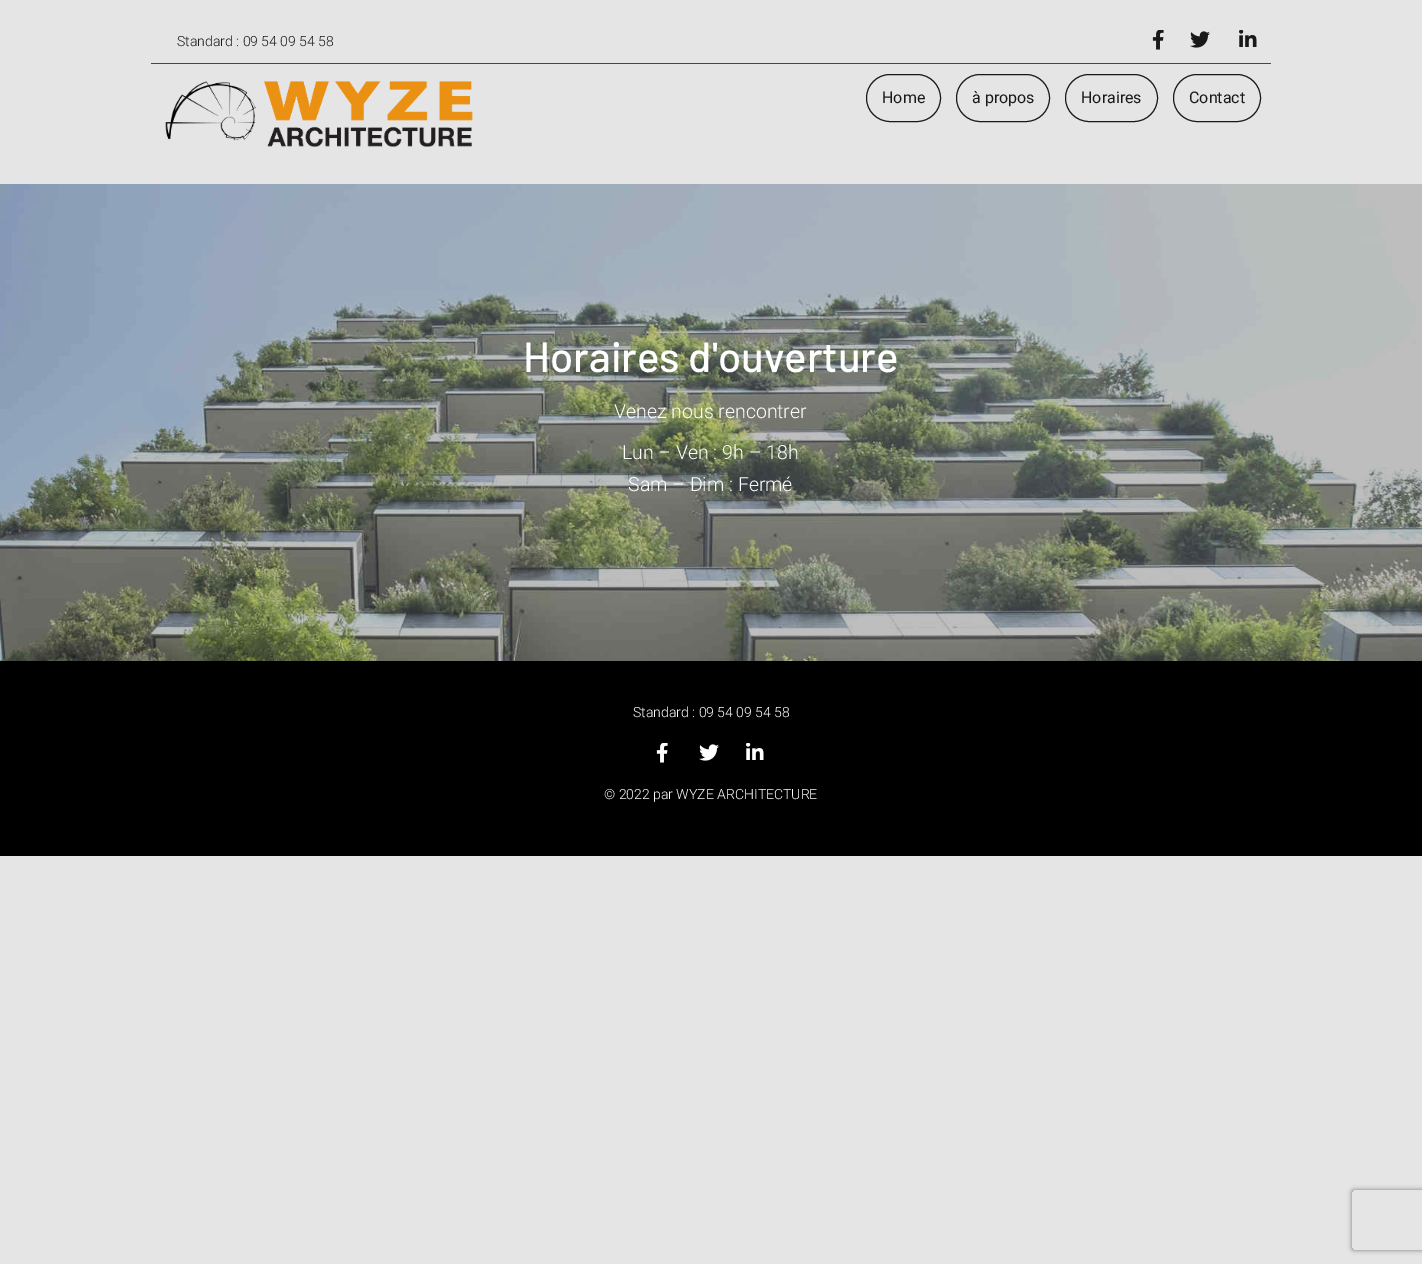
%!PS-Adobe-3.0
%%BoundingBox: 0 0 1422 1264
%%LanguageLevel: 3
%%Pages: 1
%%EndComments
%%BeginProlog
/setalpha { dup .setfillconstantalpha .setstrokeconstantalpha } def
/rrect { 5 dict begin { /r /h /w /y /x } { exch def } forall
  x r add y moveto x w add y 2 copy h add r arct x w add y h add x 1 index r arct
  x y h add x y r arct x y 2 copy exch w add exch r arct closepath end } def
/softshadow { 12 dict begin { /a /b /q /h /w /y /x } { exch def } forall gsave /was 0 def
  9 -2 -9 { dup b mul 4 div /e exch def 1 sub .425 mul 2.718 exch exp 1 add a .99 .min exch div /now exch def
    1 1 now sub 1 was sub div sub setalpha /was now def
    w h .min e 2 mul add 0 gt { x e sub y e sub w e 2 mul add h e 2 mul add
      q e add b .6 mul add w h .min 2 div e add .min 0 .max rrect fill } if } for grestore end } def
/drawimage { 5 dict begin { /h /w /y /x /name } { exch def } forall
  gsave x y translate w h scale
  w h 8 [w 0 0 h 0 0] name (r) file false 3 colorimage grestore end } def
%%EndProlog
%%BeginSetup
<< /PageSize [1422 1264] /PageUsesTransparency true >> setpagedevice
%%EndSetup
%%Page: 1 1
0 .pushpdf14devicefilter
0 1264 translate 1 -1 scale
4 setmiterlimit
0.898 setgray
0 0 1422 1264 rectfill
0.235 0.282 0.345 setrgbcolor
151 63 1120 1 rectfill
(images/1.raw) 1152 30 12 20 drawimage
(images/2.raw) 1190 31 20 17 drawimage
(images/3.raw) 1239 30 18 17 drawimage
(images/4.raw) 165 81 308 66 drawimage
0.098 setgray
866.5 74.5 74 47 23.5 rrect stroke
956.5 74.5 93 47 23.5 rrect stroke
1065.5 74.5 92 47 23.5 rrect stroke
1173.5 74.5 87 47 23.5 rrect stroke
(images/5.raw) 0 184 1422 477 drawimage
0 setgray
0 661 1422 195 rectfill
(images/6.raw) 656 743 12 20 drawimage
(images/7.raw) 699 744 20 17 drawimage
(images/8.raw) 746 743 18 17 drawimage
gsave
newpath 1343 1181 moveto 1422 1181 lineto 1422 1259 lineto 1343 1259 lineto closepath 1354 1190 moveto 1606 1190 lineto 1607 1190 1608 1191 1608 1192 curveto 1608 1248 lineto 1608 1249 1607 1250 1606 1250 curveto 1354 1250 lineto 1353 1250 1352 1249 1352 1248 curveto 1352 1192 lineto 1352 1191 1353 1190 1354 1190 curveto closepath eoclip newpath
0.502 setgray
1352 1190 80 60 2 2.5 1 softshadow
grestore
/Roboto-Light [14 0 0 -14 0 0] selectfont
0.098 setgray
177 46 moveto (Standard : 09 54 09 54 58) show
/Roboto-Regular [16 0 0 -16 0 0] selectfont
882 103 moveto (Home) show
972 103 moveto (à propos) show
1081 103 moveto (Horaires) show
1189 103 moveto (Contact) show
/Barlow-Medium [42 0 0 -42 0 0] selectfont
1 setgray
523 372 moveto (Horaires d'ouverture) show
/Roboto-Light [19.5 0 0 -19.5 0 0] selectfont
614 418 moveto (Venez nous rencontrer) show
622 459 moveto (Lun – Ven : 9h – 18h) show
628 491 moveto (Sam – Dim : Fermé) show
/Roboto-Light [14 0 0 -14 0 0] selectfont
633 717 moveto (Standard : 09 54 09 54 58) show
604 799 moveto (© 2022 par WYZE ARCHITECTURE) show
.poppdf14devicefilter showpage
%%EOF
